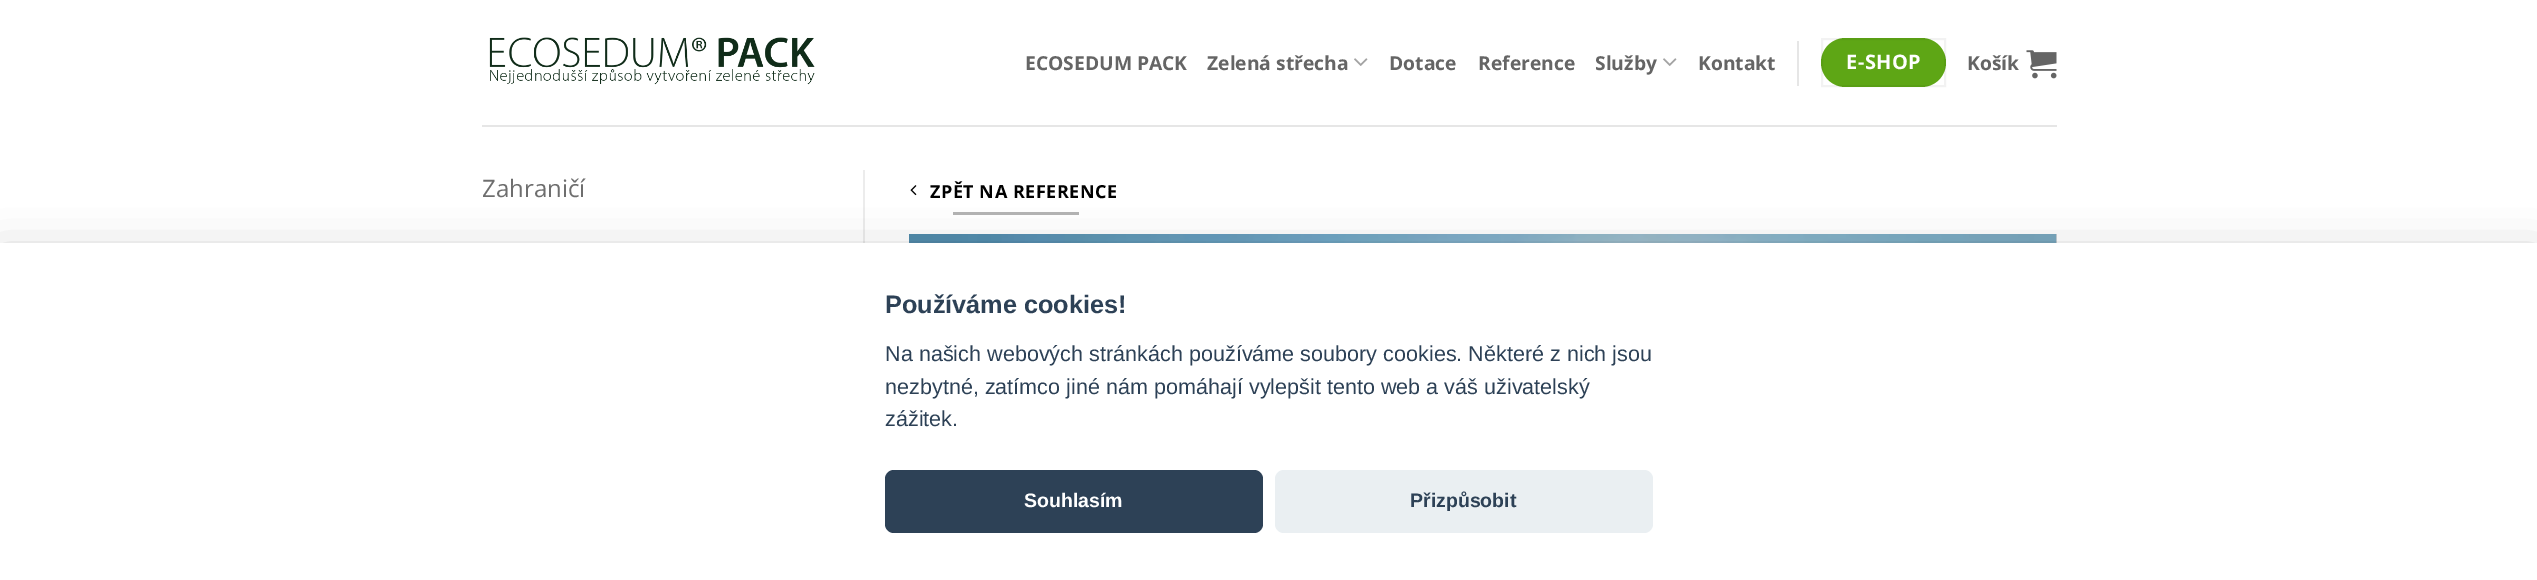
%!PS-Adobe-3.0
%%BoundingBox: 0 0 2537 580
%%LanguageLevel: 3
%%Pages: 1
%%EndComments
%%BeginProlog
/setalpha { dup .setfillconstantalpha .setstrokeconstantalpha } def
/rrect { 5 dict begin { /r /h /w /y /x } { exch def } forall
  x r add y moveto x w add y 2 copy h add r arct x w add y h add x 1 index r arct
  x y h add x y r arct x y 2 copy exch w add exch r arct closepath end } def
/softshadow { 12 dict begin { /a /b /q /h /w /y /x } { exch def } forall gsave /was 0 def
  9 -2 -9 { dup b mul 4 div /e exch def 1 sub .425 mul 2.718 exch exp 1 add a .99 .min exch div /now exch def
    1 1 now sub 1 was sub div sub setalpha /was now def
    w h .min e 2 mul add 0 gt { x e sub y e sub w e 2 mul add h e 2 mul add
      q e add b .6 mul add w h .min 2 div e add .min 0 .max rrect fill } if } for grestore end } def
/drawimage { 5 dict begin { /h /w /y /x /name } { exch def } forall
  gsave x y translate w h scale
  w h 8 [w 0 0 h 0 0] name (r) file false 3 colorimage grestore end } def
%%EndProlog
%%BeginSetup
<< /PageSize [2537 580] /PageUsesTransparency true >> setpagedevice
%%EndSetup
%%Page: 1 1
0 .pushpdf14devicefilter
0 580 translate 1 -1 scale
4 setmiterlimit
1 setgray
0 0 2537 580 rectfill
0.851 setgray
2056 234 1 9 rectfill
(images/1.raw) 489 37 326 48 drawimage
(images/2.raw) 1354 58 14 8 drawimage
(images/2.raw) 1663 58 14 8 drawimage
0.902 setgray
1797 41 2 45 rectfill
0.369 0.651 0.082 setrgbcolor
1821 38 125 49 24.5 rrect fill
0.05 setalpha
0 setgray
2 setlinewidth
1822 39 123 47 rectstroke
1 setalpha
(images/3.raw) 2026 50 31 29 drawimage
0.902 setgray
482 125 1575 2 rectfill
0.925 setgray
863 170 2 73 rectfill
(images/4.raw) 910 185 7 11 drawimage
0.702 setgray
953 212 126 3 rectfill
(images/5.raw) 909 234 1148 9 drawimage
0.008 0.008 0.012 setrgbcolor
0 258 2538 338 0 22.5 0.28 softshadow
1 setgray
0 243 2537 337 rectfill
0.176 0.255 0.337 setrgbcolor
885 470 378 63 9 rrect fill
0.918 0.937 0.949 setrgbcolor
1275 470 378 63 9 rrect fill
/OpenSans-Bold [19.25 0 0 -19.25 0 0] selectfont
0.396 setgray
1025 70 moveto (ECOSEDUM PACK) show
1207 70 moveto (Zelená střecha) show
1389 70 moveto (Dotace) show
1478 70 moveto (Reference) show
1595 70 moveto (Služby) show
1698 70 moveto (Kontakt) show
/OpenSans-Bold [20 0 0 -20 0 0] selectfont
1 setgray
1846 69 moveto 0.5 0 (E-SHOP) ashow
/OpenSans-Bold [19.25 0 0 -19.25 0 0] selectfont
0.396 setgray
1967 70 moveto (Košík) show
/OpenSans-Regular [24 0 0 -24 0 0] selectfont
0.431 setgray
482 197 moveto (Zahraničí) show
/OpenSans-Bold [18 0 0 -18 0 0] selectfont
0 setgray
930 198 moveto 0.5 0 (ZPĚT NA REFERENCE) ashow
/LiberationSans-Bold [25.25 0 0 -25.25 0 0] selectfont
0.176 0.255 0.337 setrgbcolor
885 313 moveto (Používáme cookies!) show
/LiberationSans-Regular [21.6 0 0 -21.6 0 0] selectfont
885 361 moveto (Na našich webových stránkách používáme soubory cookies. Některé z nich jsou) show
885 394 moveto (nezbytné, zatímco jiné nám pomáhají vylepšit tento web a váš uživatelský) show
885 426 moveto (zážitek.) show
/LiberationSans-Bold [19.5 0 0 -19.5 0 0] selectfont
1 setgray
1024 507 moveto (Souhlasím) show
0.176 0.255 0.337 setrgbcolor
1410 507 moveto (Přizpůsobit) show
.poppdf14devicefilter showpage
%%EOF
